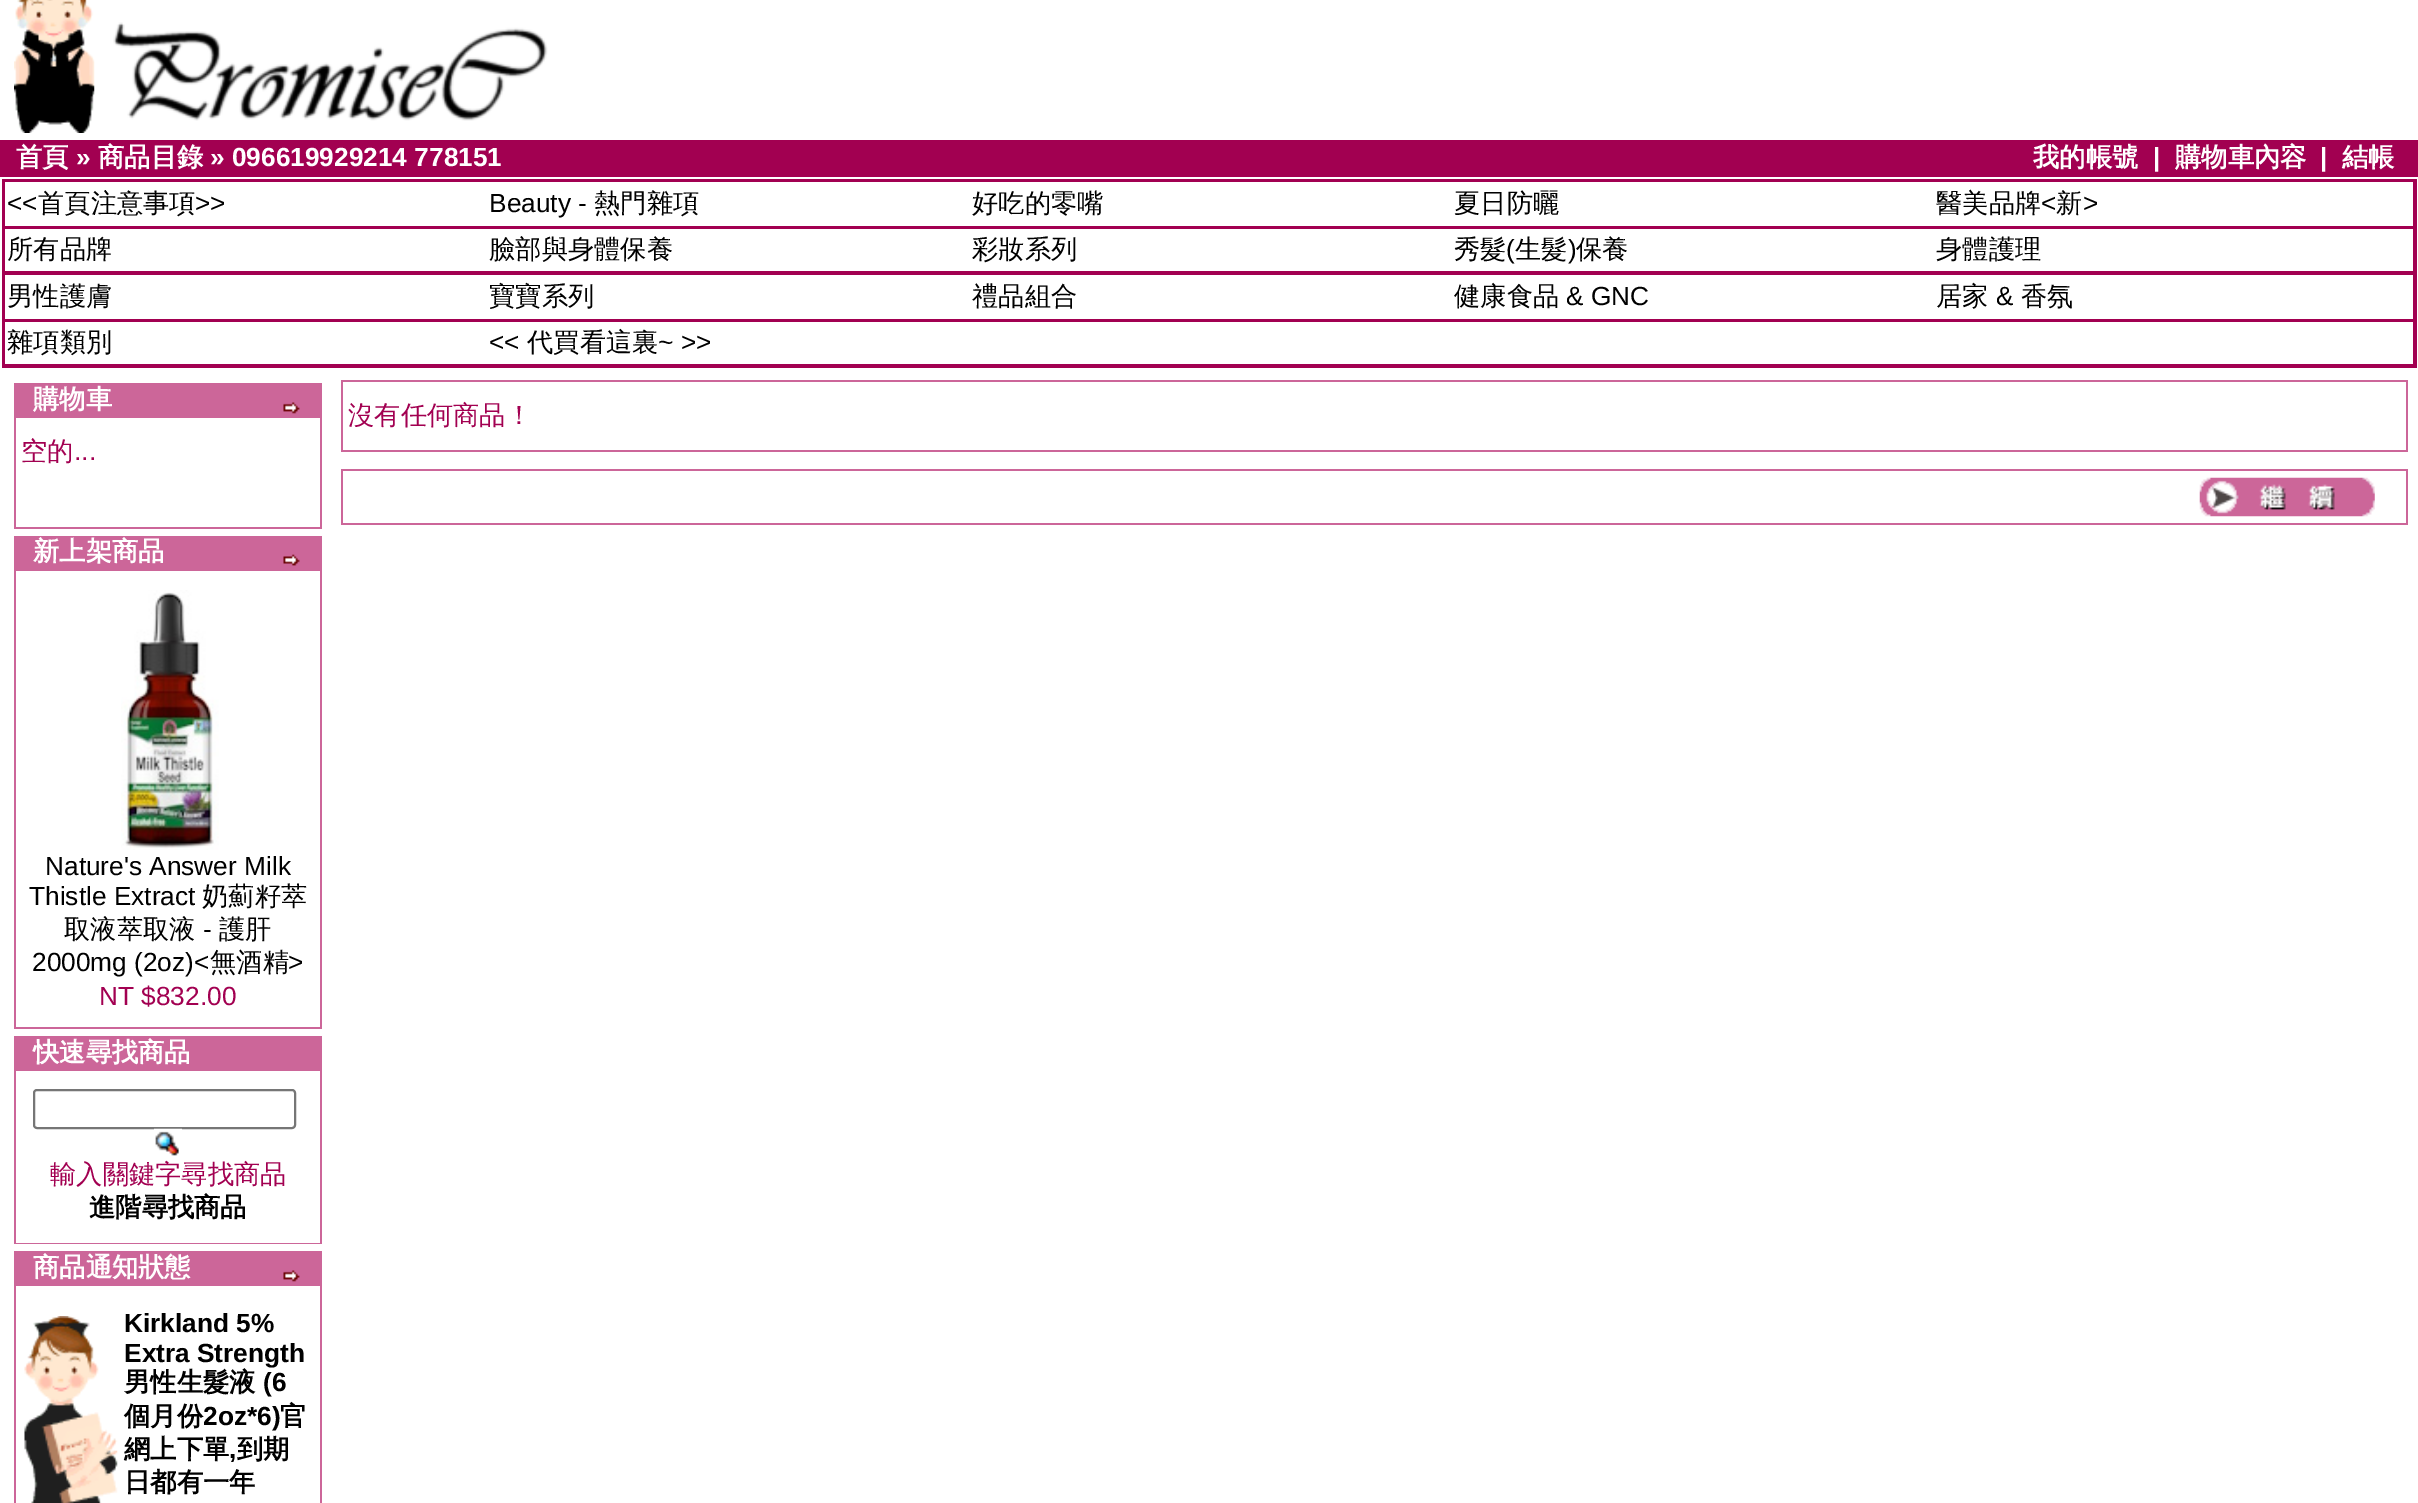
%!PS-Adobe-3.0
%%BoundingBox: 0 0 2418 1503
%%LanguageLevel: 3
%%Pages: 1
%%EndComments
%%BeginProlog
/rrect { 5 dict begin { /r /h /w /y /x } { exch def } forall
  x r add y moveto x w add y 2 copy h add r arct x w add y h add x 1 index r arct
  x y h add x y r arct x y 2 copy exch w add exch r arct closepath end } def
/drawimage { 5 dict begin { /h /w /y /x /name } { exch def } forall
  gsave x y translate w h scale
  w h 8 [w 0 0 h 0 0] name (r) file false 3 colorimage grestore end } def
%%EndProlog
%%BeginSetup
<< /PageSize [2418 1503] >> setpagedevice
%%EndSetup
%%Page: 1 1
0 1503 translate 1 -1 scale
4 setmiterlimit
1 setgray
0 0 2418 1503 rectfill
(images/1.raw) 14 0 81 133 drawimage
(images/2.raw) 94 22 454 99 drawimage
0.635 0 0.318 setrgbcolor
0 140 2418 37 rectfill
2 179 2415 189 rectfill
1 setgray
5 182 2408 44 rectfill
5 229 2408 42 rectfill
5 275 2408 44 rectfill
5 322 2408 42 rectfill
0.8 0.4 0.6 setrgbcolor
14 383 308 146 rectfill
(images/3.raw) 283 402 17 12 drawimage
1 setgray
16 418 304 109 rectfill
0.8 0.4 0.6 setrgbcolor
14 536 308 493 rectfill
(images/4.raw) 283 554 17 12 drawimage
1 setgray
16 571 304 456 rectfill
(images/5.raw) 121 590 98 260 drawimage
0.8 0.4 0.6 setrgbcolor
14 1036 308 208 rectfill
1 setgray
16 1071 304 172 rectfill
0.463 setgray
2 setlinewidth
34 1090 261 38 3 rrect stroke
(images/6.raw) 154 1128 28 28 drawimage
0.8 0.4 0.6 setrgbcolor
14 1251 308 252 rectfill
(images/3.raw) 283 1270 17 12 drawimage
1 setgray
16 1286 304 217 rectfill
(images/7.raw) 24 1316 94 187 drawimage
0.8 0.4 0.6 setrgbcolor
341 380 2067 72 rectfill
1 setgray
343 382 2063 68 rectfill
0.8 0.4 0.6 setrgbcolor
341 469 2067 56 rectfill
1 setgray
343 471 2063 52 rectfill
(images/8.raw) 2199 477 176 40 drawimage
/WenQuanYiZenHei-Bold [26.25 0 0 -26.25 0 0] selectfont
16 166 moveto (首頁) show
/LiberationSans-Bold [26.25 0 0 -26.25 0 0] selectfont
76 166 moveto (») show
/WenQuanYiZenHei-Bold [26.25 0 0 -26.25 0 0] selectfont
98 166 moveto (商品目錄) show
/LiberationSans-Bold [26.25 0 0 -26.25 0 0] selectfont
210 166 moveto (» 096619929214 778151) show
/WenQuanYiZenHei-Bold [26.25 0 0 -26.25 0 0] selectfont
2033 166 moveto (我的帳號) show
/LiberationSans-Bold [26.25 0 0 -26.25 0 0] selectfont
2153 166 moveto (|) show
/WenQuanYiZenHei-Bold [26.25 0 0 -26.25 0 0] selectfont
2175 166 moveto (購物車內容) show
/LiberationSans-Bold [26.25 0 0 -26.25 0 0] selectfont
2320 166 moveto (|) show
/WenQuanYiZenHei-Bold [26.25 0 0 -26.25 0 0] selectfont
2342 166 moveto (結帳) show
/LiberationSans-Regular [26.25 0 0 -26.25 0 0] selectfont
0 setgray
7 212 moveto (<<) show
/WenQuanYiZenHei-Medium [26.25 0 0 -26.25 0 0] selectfont
38 212 moveto (首頁注意事項) show
/LiberationSans-Regular [26.25 0 0 -26.25 0 0] selectfont
195 212 moveto (>>) show
489 212 moveto (Beauty -) show
/WenQuanYiZenHei-Medium [26.25 0 0 -26.25 0 0] selectfont
594 212 moveto (熱門雜項) show
972 212 moveto (好吃的零嘴) show
1454 212 moveto (夏日防曬) show
1936 212 moveto (醫美品牌) show
/LiberationSans-Regular [26.25 0 0 -26.25 0 0] selectfont
2041 212 moveto (<) show
/WenQuanYiZenHei-Medium [26.25 0 0 -26.25 0 0] selectfont
2056 212 moveto (新) show
/LiberationSans-Regular [26.25 0 0 -26.25 0 0] selectfont
2083 212 moveto (>) show
/WenQuanYiZenHei-Medium [26.25 0 0 -26.25 0 0] selectfont
7 258 moveto (所有品牌) show
489 258 moveto (臉部與身體保養) show
972 258 moveto (彩妝系列) show
1454 258 moveto (秀髮) show
/LiberationSans-Regular [26.25 0 0 -26.25 0 0] selectfont
1506 258 moveto (\() show
/WenQuanYiZenHei-Medium [26.25 0 0 -26.25 0 0] selectfont
1515 258 moveto (生髮) show
/LiberationSans-Regular [26.25 0 0 -26.25 0 0] selectfont
1568 258 moveto (\)) show
/WenQuanYiZenHei-Medium [26.25 0 0 -26.25 0 0] selectfont
1576 258 moveto (保養) show
1936 258 moveto (身體護理) show
7 305 moveto (男性護膚) show
489 305 moveto (寶寶系列) show
972 305 moveto (禮品組合) show
1454 305 moveto (健康食品) show
/LiberationSans-Regular [26.25 0 0 -26.25 0 0] selectfont
1566 305 moveto (& GNC) show
/WenQuanYiZenHei-Medium [26.25 0 0 -26.25 0 0] selectfont
1936 305 moveto (居家) show
/LiberationSans-Regular [26.25 0 0 -26.25 0 0] selectfont
1996 305 moveto (&) show
/WenQuanYiZenHei-Medium [26.25 0 0 -26.25 0 0] selectfont
2021 305 moveto (香氛) show
7 351 moveto (雜項類別) show
/LiberationSans-Regular [26.25 0 0 -26.25 0 0] selectfont
489 351 moveto (<<) show
/WenQuanYiZenHei-Medium [26.25 0 0 -26.25 0 0] selectfont
527 351 moveto (代買看這裏) show
/LiberationSans-Regular [26.25 0 0 -26.25 0 0] selectfont
658 351 moveto (~ >>) show
/WenQuanYiZenHei-Bold [26.25 0 0 -26.25 0 0] selectfont
1 setgray
33 408 moveto (購物車) show
/WenQuanYiZenHei-Medium [26.25 0 0 -26.25 0 0] selectfont
0.635 0 0.318 setrgbcolor
21 460 moveto (空的) show
/LiberationSans-Regular [26.25 0 0 -26.25 0 0] selectfont
74 460 moveto (...) show
/WenQuanYiZenHei-Bold [26.25 0 0 -26.25 0 0] selectfont
1 setgray
33 560 moveto (新上架商品) show
/LiberationSans-Regular [26.25 0 0 -26.25 0 0] selectfont
0 setgray
45 875 moveto (Nature's Answer Milk) show
29 905 moveto (Thistle Extract) show
/WenQuanYiZenHei-Medium [26.25 0 0 -26.25 0 0] selectfont
202 905 moveto (奶薊籽萃) show
64 938 moveto (取液萃取液) show
/LiberationSans-Regular [26.25 0 0 -26.25 0 0] selectfont
203 938 moveto (-) show
/WenQuanYiZenHei-Medium [26.25 0 0 -26.25 0 0] selectfont
219 938 moveto (護肝) show
/LiberationSans-Regular [26.25 0 0 -26.25 0 0] selectfont
32 971 moveto (2000mg \(2oz\)<) show
/WenQuanYiZenHei-Medium [26.25 0 0 -26.25 0 0] selectfont
210 971 moveto (無酒精) show
/LiberationSans-Regular [26.25 0 0 -26.25 0 0] selectfont
288 971 moveto (>) show
0.635 0 0.318 setrgbcolor
99 1005 moveto (NT $832.00) show
/WenQuanYiZenHei-Bold [26.25 0 0 -26.25 0 0] selectfont
1 setgray
33 1061 moveto (快速尋找商品) show
/WenQuanYiZenHei-Medium [26.25 0 0 -26.25 0 0] selectfont
0.635 0 0.318 setrgbcolor
50 1183 moveto (輸入關鍵字尋找商品) show
/WenQuanYiZenHei-Bold [26.25 0 0 -26.25 0 0] selectfont
0 setgray
89 1216 moveto (進階尋找商品) show
1 setgray
33 1276 moveto (商品通知狀態) show
/LiberationSans-Bold [26.25 0 0 -26.25 0 0] selectfont
0 setgray
124 1332 moveto (Kirkland 5%) show
124 1362 moveto (Extra Strength) show
/WenQuanYiZenHei-Bold [26.25 0 0 -26.25 0 0] selectfont
124 1391 moveto (男性生髮液) show
/LiberationSans-Bold [26.25 0 0 -26.25 0 0] selectfont
263 1391 moveto (\(6) show
/WenQuanYiZenHei-Bold [26.25 0 0 -26.25 0 0] selectfont
124 1425 moveto (個月份) show
/LiberationSans-Bold [26.25 0 0 -26.25 0 0] selectfont
203 1425 moveto (2oz*6\)) show
/WenQuanYiZenHei-Bold [26.25 0 0 -26.25 0 0] selectfont
280 1425 moveto (官) show
124 1458 moveto (網上下單) show
/LiberationSans-Bold [26.25 0 0 -26.25 0 0] selectfont
229 1458 moveto (,) show
/WenQuanYiZenHei-Bold [26.25 0 0 -26.25 0 0] selectfont
237 1458 moveto (到期) show
124 1491 moveto (日都有一年) show
/WenQuanYiZenHei-Medium [26.25 0 0 -26.25 0 0] selectfont
0.635 0 0.318 setrgbcolor
348 424 moveto (沒有任何商品！) show
showpage
%%EOF
